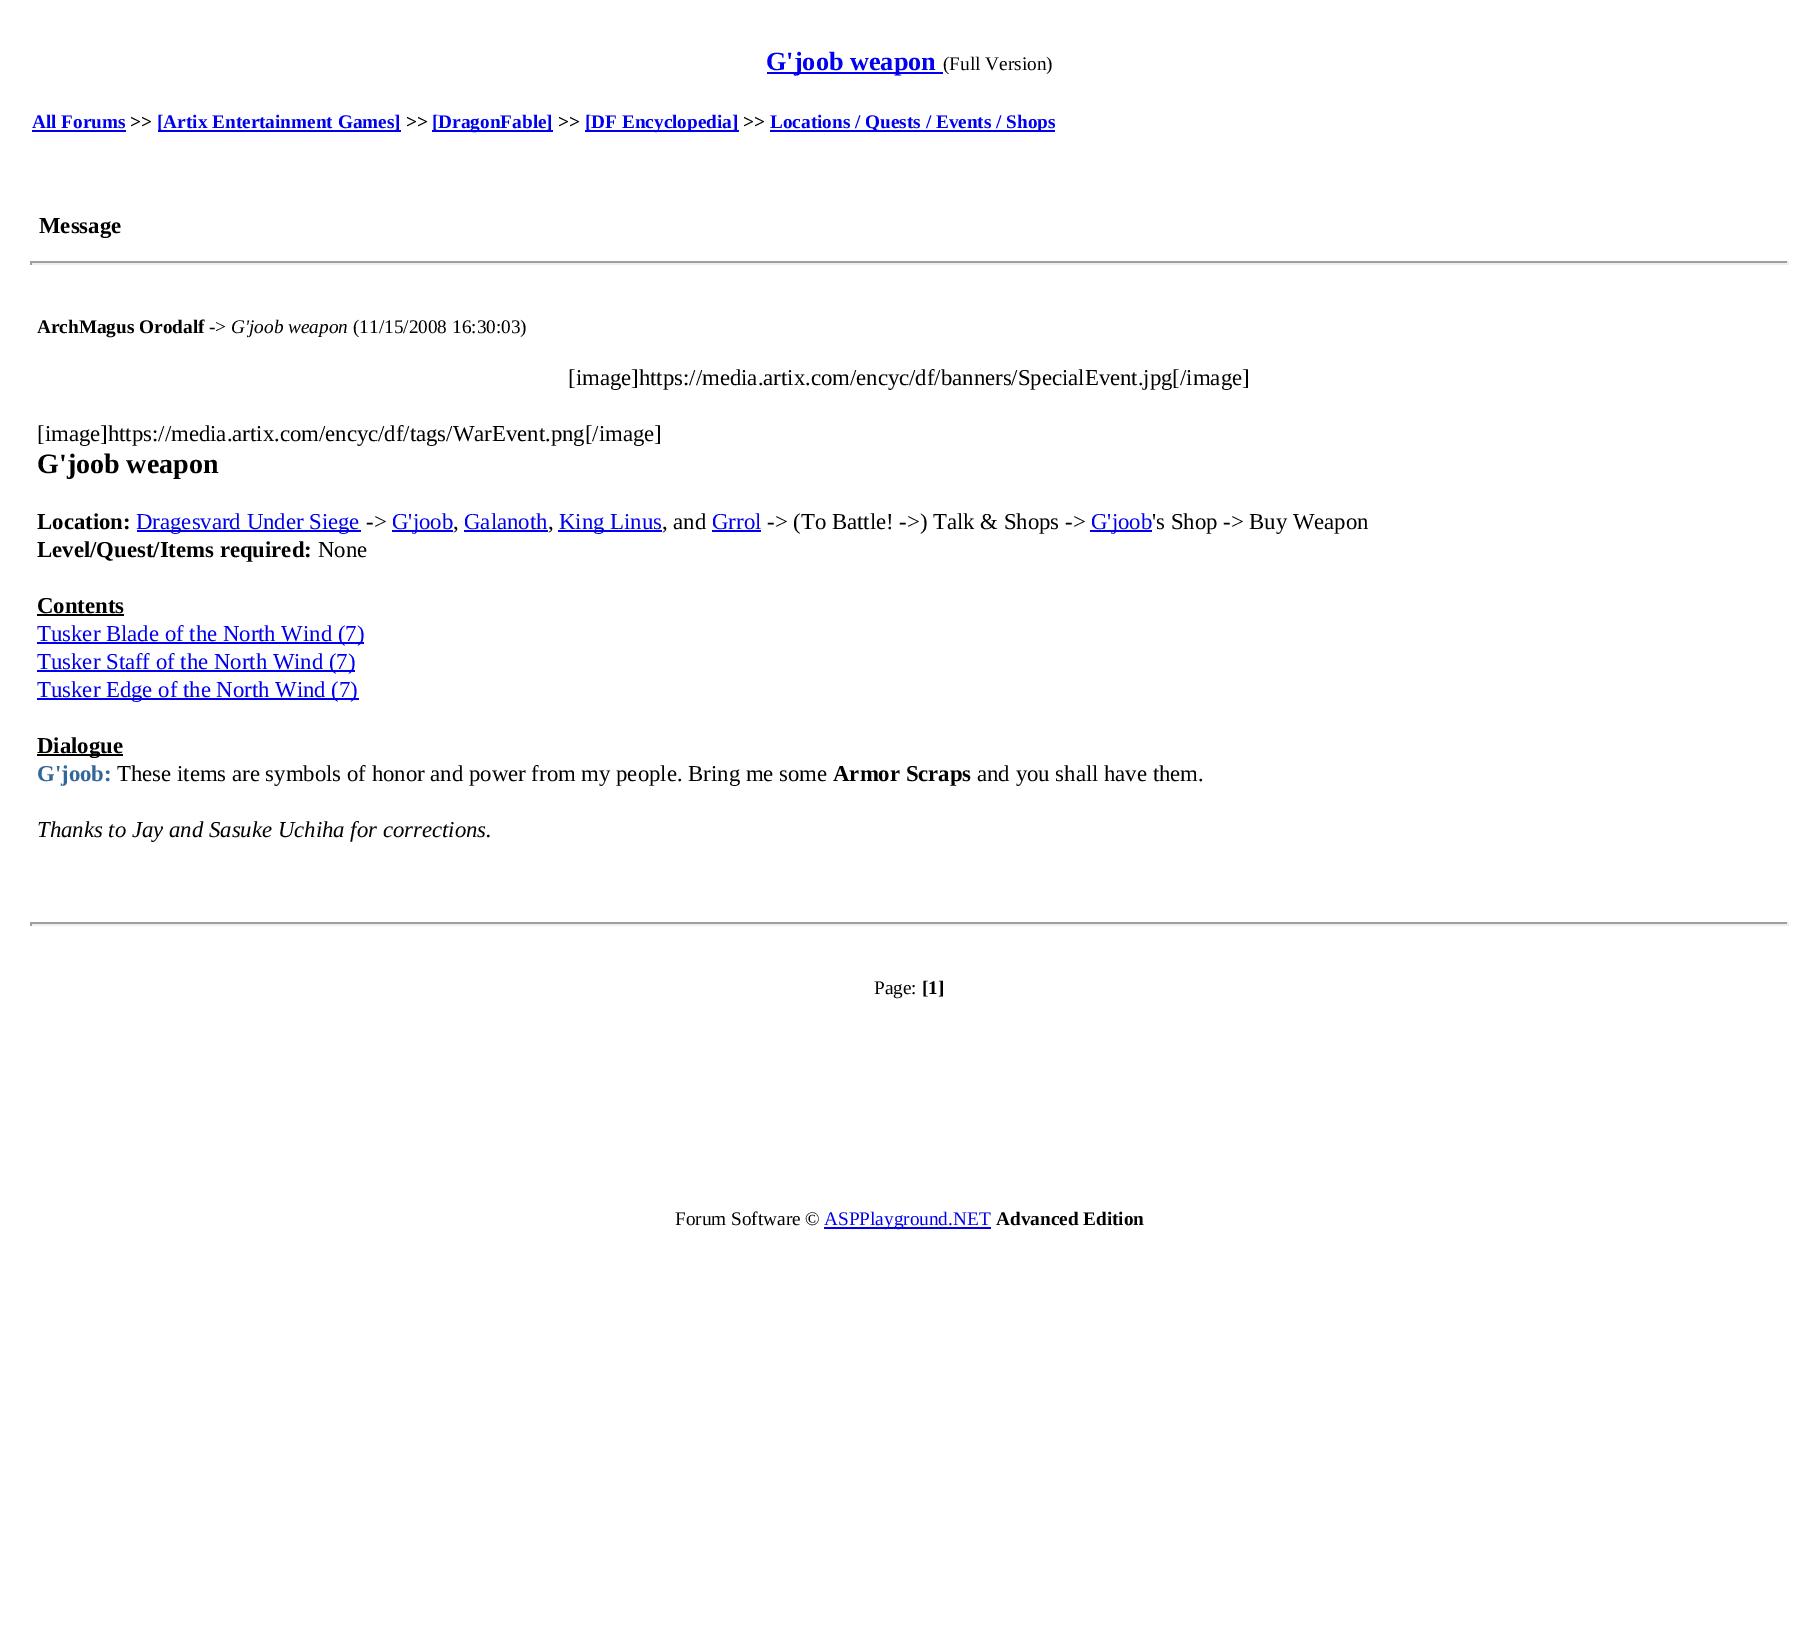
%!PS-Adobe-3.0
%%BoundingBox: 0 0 1817 1640
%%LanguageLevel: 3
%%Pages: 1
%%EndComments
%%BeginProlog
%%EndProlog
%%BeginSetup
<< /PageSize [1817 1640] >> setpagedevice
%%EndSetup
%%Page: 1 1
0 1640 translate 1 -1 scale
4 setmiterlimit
1 setgray
0 0 1817 1640 rectfill
0 0 0.933 setrgbcolor
767 72 176 2 rectfill
32 130 94 2 rectfill
158 130 243 2 rectfill
432 130 121 2 rectfill
585 130 154 2 rectfill
770 130 285 2 rectfill
0.624 setgray
30 261 1759 2 rectfill
0.933 setgray
1787 261 2 4 rectfill
30 263 1759 2 rectfill
0.624 setgray
30 261 2 4 rectfill
0 0 0.933 setrgbcolor
137 530 224 2 rectfill
392 530 61 2 rectfill
464 530 84 2 rectfill
558 530 104 2 rectfill
712 530 49 2 rectfill
1090 530 62 2 rectfill
0 setgray
37 614 87 2 rectfill
0 0 0.933 setrgbcolor
37 642 327 2 rectfill
37 670 318 2 rectfill
37 698 322 2 rectfill
0 setgray
37 754 86 2 rectfill
0.624 setgray
30 922 1759 2 rectfill
0.933 setgray
1787 922 2 4 rectfill
30 924 1759 2 rectfill
0.624 setgray
30 922 2 4 rectfill
0 0 0.933 setrgbcolor
824 1227 167 2 rectfill
/LiberationSerif-Bold [26.25 0 0 -26.25 0 0] selectfont
766 70 moveto (G'joob weapon) show
/LiberationSerif-Regular [19.25 0 0 -19.25 0 0] selectfont
0 setgray
943 70 moveto (\(Full Version\)) show
/LiberationSerif-Bold [19.25 0 0 -19.25 0 0] selectfont
0 0 0.933 setrgbcolor
32 128 moveto (All Forums) show
0 setgray
130 128 moveto (>>) show
0 0 0.933 setrgbcolor
157 128 moveto ([Artix Entertainment Games]) show
0 setgray
406 128 moveto (>>) show
0 0 0.933 setrgbcolor
432 128 moveto ([DragonFable]) show
0 setgray
558 128 moveto (>>) show
0 0 0.933 setrgbcolor
585 128 moveto ([DF Encyclopedia]) show
0 setgray
743 128 moveto (>>) show
0 0 0.933 setrgbcolor
770 128 moveto (Locations / Quests / Events / Shops) show
/LiberationSerif-Bold [22.75 0 0 -22.75 0 0] selectfont
0 setgray
39 233 moveto (Message) show
/LiberationSerif-Bold [19.25 0 0 -19.25 0 0] selectfont
37 333 moveto (ArchMagus Orodalf) show
/LiberationSerif-Regular [19.25 0 0 -19.25 0 0] selectfont
209 333 moveto (->) show
/LiberationSerif-Italic [19.25 0 0 -19.25 0 0] selectfont
231 333 moveto (G'joob weapon) show
/LiberationSerif-Regular [19.25 0 0 -19.25 0 0] selectfont
353 333 moveto (\(11/15/2008 16:30:03\)) show
/LiberationSerif-Regular [22.75 0 0 -22.75 0 0] selectfont
568 385 moveto ([image]https://media.artix.com/encyc/df/banners/SpecialEvent.jpg[/image]) show
37 441 moveto ([image]https://media.artix.com/encyc/df/tags/WarEvent.png[/image]) show
/LiberationSerif-Bold [28 0 0 -28 0 0] selectfont
37 473 moveto (G'joob weapon) show
/LiberationSerif-Bold [22.75 0 0 -22.75 0 0] selectfont
37 529 moveto (Location:) show
/LiberationSerif-Regular [22.75 0 0 -22.75 0 0] selectfont
0 0 0.933 setrgbcolor
136 529 moveto (Dragesvard Under Siege) show
0 setgray
366 529 moveto (->) show
0 0 0.933 setrgbcolor
392 529 moveto (G'joob) show
464 529 moveto (Galanoth) show
559 529 moveto (King Linus) show
0 setgray
662 529 moveto (, and) show
0 0 0.933 setrgbcolor
712 529 moveto (Grrol) show
0 setgray
767 529 moveto (-> \(To Battle! ->\) Talk & Shops ->) show
0 0 0.933 setrgbcolor
1091 529 moveto (G'joob) show
0 setgray
1152 529 moveto ('s Shop -> Buy Weapon) show
453 529 moveto (,) show
548 529 moveto (,) show
/LiberationSerif-Bold [22.75 0 0 -22.75 0 0] selectfont
37 557 moveto (Level/Quest/Items required:) show
/LiberationSerif-Regular [22.75 0 0 -22.75 0 0] selectfont
318 557 moveto (None) show
/LiberationSerif-Bold [22.75 0 0 -22.75 0 0] selectfont
37 613 moveto (Contents) show
/LiberationSerif-Regular [22.75 0 0 -22.75 0 0] selectfont
0 0 0.933 setrgbcolor
37 641 moveto (Tusker Blade of the North Wind \(7\)) show
37 669 moveto (Tusker Staff of the North Wind \(7\)) show
37 697 moveto (Tusker Edge of the North Wind \(7\)) show
/LiberationSerif-Bold [22.75 0 0 -22.75 0 0] selectfont
0 setgray
37 753 moveto (Dialogue) show
0.2 0.4 0.6 setrgbcolor
37 781 moveto (G'joob:) show
/LiberationSerif-Regular [22.75 0 0 -22.75 0 0] selectfont
0 setgray
117 781 moveto (These items are symbols of honor and power from my people. Bring me some) show
/LiberationSerif-Bold [22.75 0 0 -22.75 0 0] selectfont
833 781 moveto (Armor Scraps) show
/LiberationSerif-Regular [22.75 0 0 -22.75 0 0] selectfont
977 781 moveto (and you shall have them.) show
/LiberationSerif-Italic [22.75 0 0 -22.75 0 0] selectfont
37 837 moveto (Thanks to Jay and Sasuke Uchiha for corrections.) show
/LiberationSerif-Regular [19.25 0 0 -19.25 0 0] selectfont
874 994 moveto (Page:) show
/LiberationSerif-Bold [19.25 0 0 -19.25 0 0] selectfont
922 994 moveto ([1]) show
/LiberationSerif-Regular [19.25 0 0 -19.25 0 0] selectfont
675 1225 moveto (Forum Software ©) show
0 0 0.933 setrgbcolor
824 1225 moveto (ASPPlayground.NET) show
/LiberationSerif-Bold [19.25 0 0 -19.25 0 0] selectfont
0 setgray
996 1225 moveto (Advanced Edition) show
showpage
%%EOF
